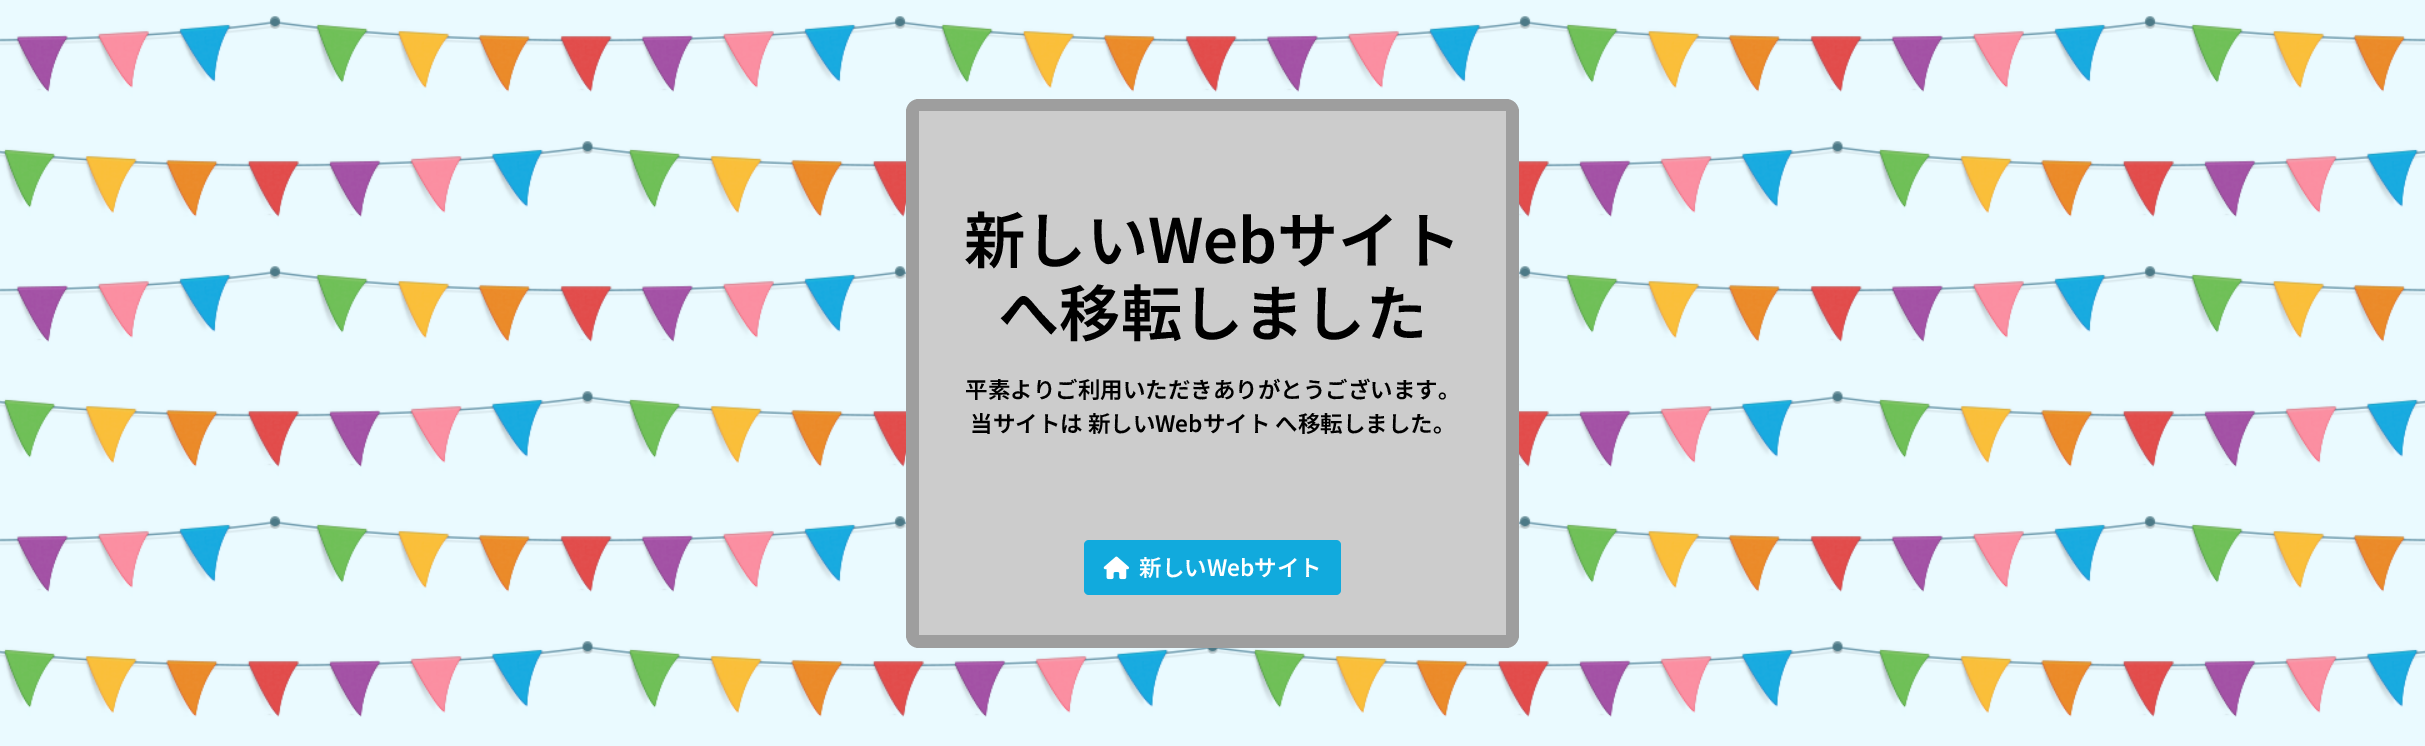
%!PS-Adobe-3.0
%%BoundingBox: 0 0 2425 746
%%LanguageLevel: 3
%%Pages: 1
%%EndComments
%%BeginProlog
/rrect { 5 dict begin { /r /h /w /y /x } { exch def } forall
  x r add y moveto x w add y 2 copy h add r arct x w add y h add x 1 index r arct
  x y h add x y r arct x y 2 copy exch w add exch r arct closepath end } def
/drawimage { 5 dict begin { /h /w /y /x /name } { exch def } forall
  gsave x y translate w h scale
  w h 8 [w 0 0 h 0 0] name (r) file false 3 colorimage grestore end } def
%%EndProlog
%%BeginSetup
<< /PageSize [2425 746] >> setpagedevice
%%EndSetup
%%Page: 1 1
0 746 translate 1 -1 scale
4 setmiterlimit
0.918 0.98 1 setrgbcolor
0 0 2425 746 rectfill
(images/1.raw) 0 16 2425 701 drawimage
0.62 setgray
906 99 613 549 13 rrect fill
0.8 setgray
919 111 587 524 rectfill
0.067 0.667 0.867 setrgbcolor
1084 540 257 55 5 rrect fill
(images/2.raw) 1103 556 26 24 drawimage
/NotoSansJP-Thin [61.25 0 0 -61.25 0 0] selectfont
0 setgray
964 263 moveto (新しいWebサイト) show
998 336 moveto (へ移転しました) show
/NotoSansJP-Thin [22.5 0 0 -22.5 0 0] selectfont
965 398 moveto (平素よりご利用いただきありがとうございます。) show
970 432 moveto (当サイトは 新しいWebサイト へ移転しました。) show
1 setgray
1139 576 moveto (新しいWebサイト) show
showpage
%%EOF
